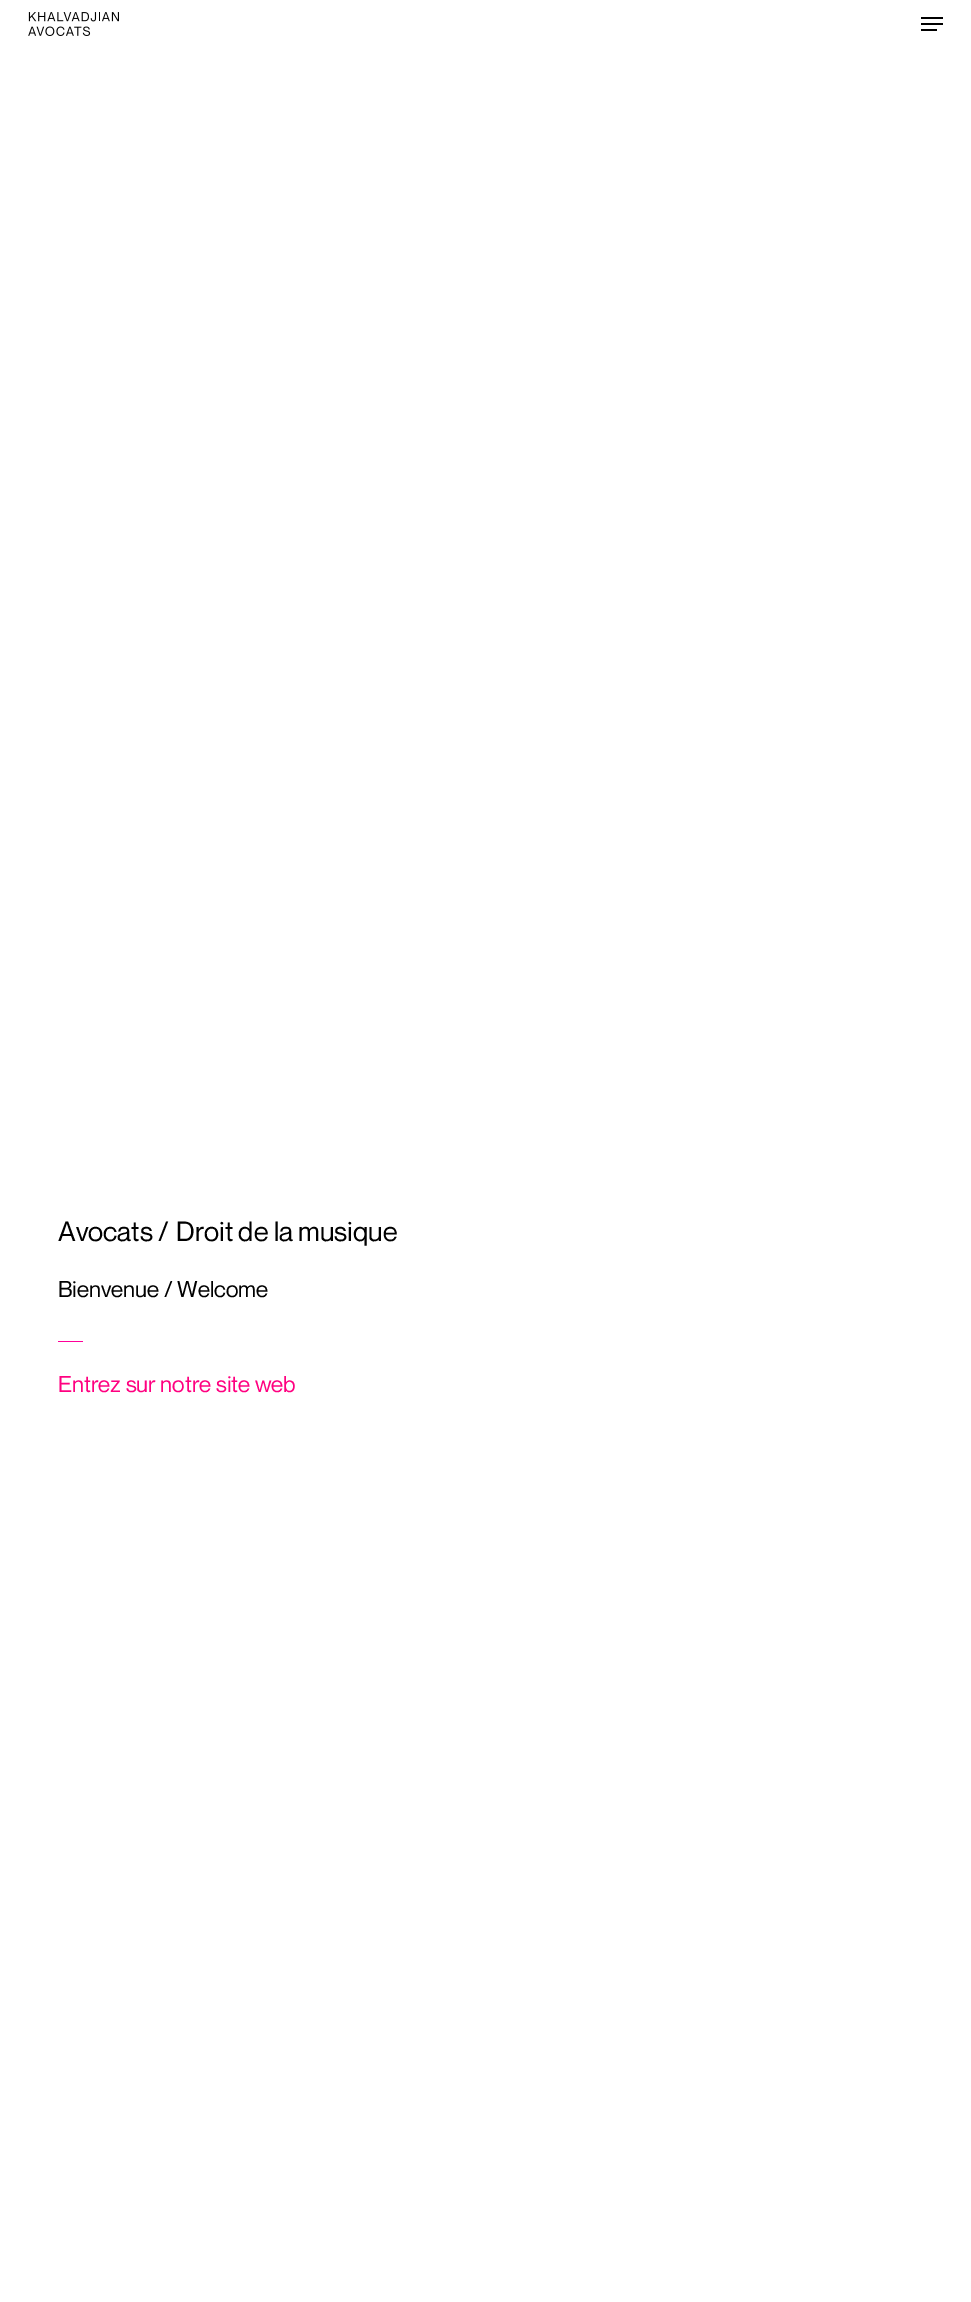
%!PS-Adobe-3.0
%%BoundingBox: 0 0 971 2302
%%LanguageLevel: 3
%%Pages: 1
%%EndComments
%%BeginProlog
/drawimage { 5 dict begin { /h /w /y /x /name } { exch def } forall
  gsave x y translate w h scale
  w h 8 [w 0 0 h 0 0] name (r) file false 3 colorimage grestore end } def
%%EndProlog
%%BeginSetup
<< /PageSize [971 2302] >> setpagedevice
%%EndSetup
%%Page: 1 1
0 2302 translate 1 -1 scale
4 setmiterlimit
1 setgray
0 0 971 2302 rectfill
(images/1.raw) 28 12 91 24 drawimage
0 setgray
921 17 22 2 rectfill
921 29 16 2 rectfill
921 23 22 2 rectfill
1 0 0.6 setrgbcolor
58 1341 25 1 rectfill
/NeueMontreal-Regular [27.25 0 0 -27.25 0 0] selectfont
0 setgray
58 1241 moveto (Avocats /) show
176 1241 moveto (Droit de la musique) show
/NeueMontreal-Regular [22.5 0 0 -22.5 0 0] selectfont
58 1297 moveto (Bienvenue / Welcome) show
1 0 0.502 setrgbcolor
58 1392 moveto (Entrez sur notre site web) show
showpage
%%EOF
